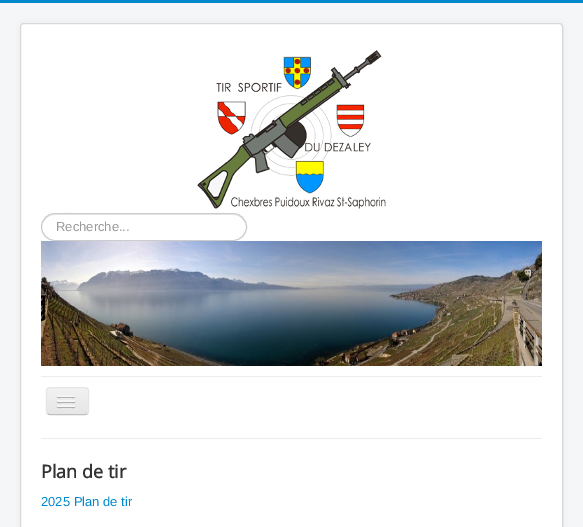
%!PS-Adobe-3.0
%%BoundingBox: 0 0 583 527
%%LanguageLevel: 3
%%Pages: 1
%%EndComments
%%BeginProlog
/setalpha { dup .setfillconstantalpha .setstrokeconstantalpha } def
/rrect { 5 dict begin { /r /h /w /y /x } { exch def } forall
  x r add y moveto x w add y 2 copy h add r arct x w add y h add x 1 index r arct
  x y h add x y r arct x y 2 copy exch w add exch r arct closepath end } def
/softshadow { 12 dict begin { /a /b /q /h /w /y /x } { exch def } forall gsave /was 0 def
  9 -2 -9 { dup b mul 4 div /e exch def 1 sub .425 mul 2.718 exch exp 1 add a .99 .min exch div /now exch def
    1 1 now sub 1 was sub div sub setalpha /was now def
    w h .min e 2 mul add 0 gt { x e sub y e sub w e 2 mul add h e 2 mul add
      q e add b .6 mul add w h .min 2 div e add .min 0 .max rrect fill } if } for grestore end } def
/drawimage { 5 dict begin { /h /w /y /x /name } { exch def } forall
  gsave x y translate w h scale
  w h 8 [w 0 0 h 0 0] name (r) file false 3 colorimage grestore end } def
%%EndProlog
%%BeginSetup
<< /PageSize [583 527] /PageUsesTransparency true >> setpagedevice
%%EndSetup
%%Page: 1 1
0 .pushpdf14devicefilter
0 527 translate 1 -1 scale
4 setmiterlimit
0.957 0.965 0.969 setrgbcolor
0 0 583 527 rectfill
0 0.533 0.8 setrgbcolor
0 0 583 3 rectfill
0 setgray
20 23 543 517 4 3 0.05 softshadow
1 setgray
20 23 543 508 4 rrect fill
0.15 setalpha
0 setgray
20.5 23.5 542 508 3.5 rrect stroke
1 setalpha
(images/1.raw) 197 50 189 159 drawimage
0.925 setgray
newpath 55 215 moveto 233 215 lineto 240 215 246 221 246 228 curveto 247 207 211 214 203 214 curveto 85 214 lineto 77 214 41 207 42 228 curveto 42 221 48 215 55 215 curveto closepath fill
0.8 setgray
41.5 213.5 205 27 13.5 rrect stroke
(images/2.raw) 41 241 501 125 drawimage
0.925 setgray
41 376 501 1 rectfill
41 438 501 1 rectfill
0.929 setgray
46 387 43 28 4 rrect fill
gsave
46 387 43 28 4 rrect clip newpath
gsave newpath 46 388 moveto 89 388 lineto 89 414 lineto 46 414 lineto closepath clip newpath
<< /ShadingType 2 /ColorSpace /DeviceRGB /Coords [68 388 68 414] /Extend [true true] /Function << /FunctionType 2 /Domain [0 1] /C0 [0.949 0.949 0.949] /C1 [0.902 0.902 0.902] /N 1 >> >> shfill grestore
grestore
0.749 setgray
newpath 87.5 413.5 moveto 87 414 86 414.5 85 414.5 curveto 50 414.5 lineto 49 414.5 48 414 47.5 413.5 curveto stroke
0.902 setgray
newpath 47.5 413.5 moveto 45.5 411 46.5 403.5 46.5 401 curveto 46.5 389 44 387.5 56 387.5 curveto 79 387.5 lineto 91 387.5 88.5 389 88.5 401 curveto 88.5 403.5 89.5 411 87.5 413.5 curveto stroke
0.702 setgray
newpath 57 396.5 moveto 56 398.5 60.5 398 60.5 398 curveto 71.5 398 lineto 71.5 398 76 398.5 75 396.5 curveto 74 397.5 67.5 397 66 397 curveto 64.5 397 58 397.5 57 396.5 curveto closepath fill
0.961 setgray
57 395 18 2 1 rrect fill
0.69 setgray
newpath 57 401.5 moveto 56 403.5 60.5 403 60.5 403 curveto 71.5 403 lineto 71.5 403 76 403.5 75 401.5 curveto 74 402.5 67.5 402 66 402 curveto 64.5 402 58 402.5 57 401.5 curveto closepath fill
0.961 setgray
57 400 18 2 1 rrect fill
0.686 setgray
newpath 57 406.5 moveto 56 408.5 60.5 408 60.5 408 curveto 71.5 408 lineto 71.5 408 76 408.5 75 406.5 curveto 74 407.5 67.5 407 66 407 curveto 64.5 407 58 407.5 57 406.5 curveto closepath fill
0.961 setgray
57 405 18 2 1 rrect fill
/LiberationSans-Regular [13 0 0 -13 0 0] selectfont
0.6 setgray
56 231 moveto (Recherche...) show
/OpenSans-Bold [18 0 0 -18 0 0] selectfont
0.2 setgray
41 478 moveto (Plan de tir) show
/LiberationSans-Regular [13 0 0 -13 0 0] selectfont
0 0.533 0.8 setrgbcolor
41 506 moveto (2025 Plan de tir) show
.poppdf14devicefilter showpage
%%EOF
